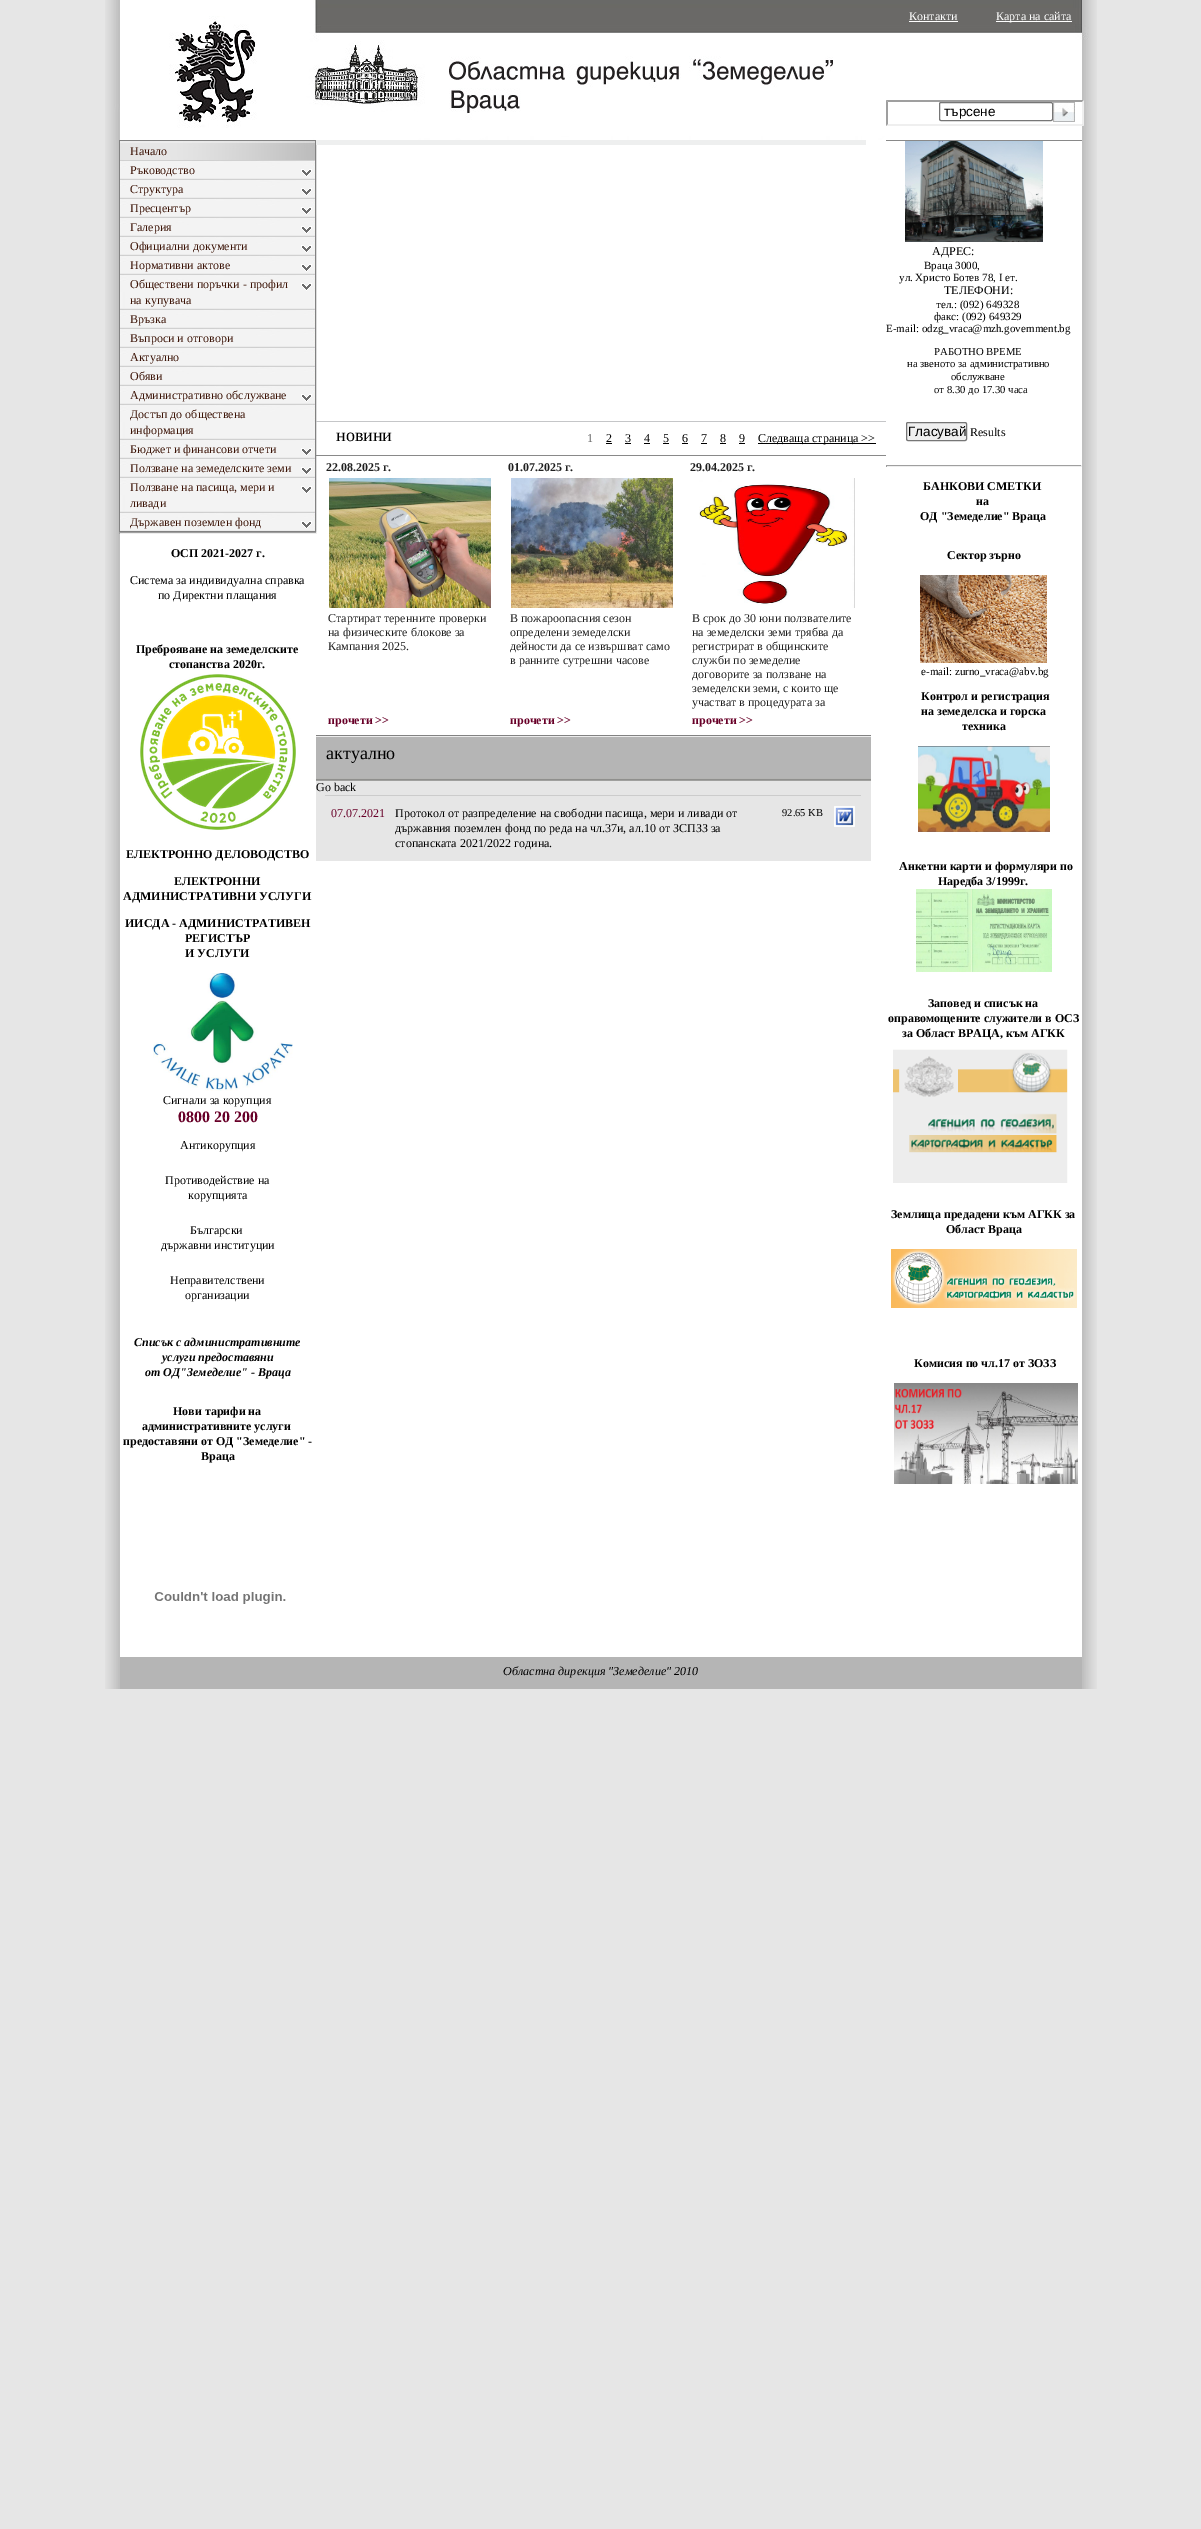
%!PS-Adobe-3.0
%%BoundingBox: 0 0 1201 2529
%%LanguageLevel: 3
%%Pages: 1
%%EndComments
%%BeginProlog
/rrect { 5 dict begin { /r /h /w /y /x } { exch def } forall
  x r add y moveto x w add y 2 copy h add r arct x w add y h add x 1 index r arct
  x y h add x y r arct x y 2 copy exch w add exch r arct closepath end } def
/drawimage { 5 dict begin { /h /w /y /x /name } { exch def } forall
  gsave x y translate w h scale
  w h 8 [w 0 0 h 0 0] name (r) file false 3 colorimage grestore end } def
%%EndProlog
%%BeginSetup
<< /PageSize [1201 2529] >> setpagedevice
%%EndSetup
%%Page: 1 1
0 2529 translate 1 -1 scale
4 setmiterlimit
0.902 setgray
0 0 1201 2529 rectfill
(images/1.raw) 105 0 992 140 drawimage
1 setgray
909 21 49 1 rectfill
996 21 76 1 rectfill
(images/2.raw) 105 140 992 1517 drawimage
0.624 setgray
newpath 886 100 moveto 1084 100 lineto 1082 102 lineto 888 102 lineto closepath fill
0.937 setgray
newpath 1084 100 moveto 1084 126 lineto 1082 124 lineto 1082 102 lineto closepath fill
newpath 1084 126 moveto 886 126 lineto 888 124 lineto 1082 124 lineto closepath fill
0.624 setgray
newpath 886 126 moveto 886 100 lineto 888 102 lineto 888 124 lineto closepath fill
0.463 setgray
939.5 102.5 113 18 1.5 rrect stroke
(images/3.raw) 1053 102 22 20 drawimage
0.51 setgray
119.5 140.5 196 391 rectstroke
(images/4.raw) 120 141 195 19 drawimage
(images/5.raw) 120 160 195 18 drawimage
0.922 setgray
120 178 195 1 rectfill
(images/6.raw) 301 169 11 8 drawimage
(images/5.raw) 120 179 195 18 drawimage
120 197 195 1 rectfill
(images/6.raw) 301 188 11 8 drawimage
(images/5.raw) 120 198 195 18 drawimage
120 216 195 1 rectfill
(images/6.raw) 301 207 11 8 drawimage
(images/5.raw) 120 217 195 18 drawimage
120 235 195 1 rectfill
(images/6.raw) 301 226 11 8 drawimage
(images/5.raw) 120 236 195 18 drawimage
120 254 195 1 rectfill
(images/6.raw) 301 245 11 8 drawimage
(images/5.raw) 120 255 195 18 drawimage
120 273 195 1 rectfill
(images/6.raw) 301 264 11 8 drawimage
(images/7.raw) 120 274 195 34 drawimage
120 308 195 1 rectfill
(images/6.raw) 301 283 11 8 drawimage
(images/5.raw) 120 309 195 18 drawimage
120 327 195 1 rectfill
(images/5.raw) 120 328 195 18 drawimage
120 346 195 1 rectfill
(images/5.raw) 120 347 195 18 drawimage
120 365 195 1 rectfill
(images/5.raw) 120 366 195 18 drawimage
120 384 195 1 rectfill
(images/5.raw) 120 385 195 18 drawimage
120 403 195 1 rectfill
(images/6.raw) 301 394 11 8 drawimage
(images/7.raw) 120 404 195 34 drawimage
120 438 195 1 rectfill
(images/5.raw) 120 439 195 18 drawimage
120 457 195 1 rectfill
(images/6.raw) 301 448 11 8 drawimage
(images/5.raw) 120 458 195 18 drawimage
120 476 195 1 rectfill
(images/6.raw) 301 467 11 8 drawimage
(images/7.raw) 120 477 195 34 drawimage
120 511 195 1 rectfill
(images/6.raw) 301 486 11 8 drawimage
(images/5.raw) 120 512 195 18 drawimage
120 530 195 1 rectfill
(images/6.raw) 301 521 11 8 drawimage
0.624 setgray
119 532 198 1 rectfill
0.933 setgray
316 532 1 2 rectfill
119 533 198 1 rectfill
0.624 setgray
119 532 1 2 rectfill
(images/8.raw) 140 674 156 156 drawimage
(images/9.raw) 153 973 140 118 drawimage
(images/10.raw) 154 1592 132 12 drawimage
0.933 0.937 0.937 setrgbcolor
316 140 550 5 rectfill
0.773 0.776 0.784 setrgbcolor
316 421 570 1 rectfill
0 setgray
606 443 6 1 rectfill
625 443 6 1 rectfill
644 443 6 1 rectfill
663 443 6 1 rectfill
682 443 6 1 rectfill
701 443 6 1 rectfill
720 443 6 1 rectfill
739 443 6 1 rectfill
758 443 118 1 rectfill
0.537 setgray
316 455 570 1 rectfill
(images/11.raw) 329 478 162 130 drawimage
(images/12.raw) 511 478 162 130 drawimage
(images/13.raw) 699 478 156 130 drawimage
0.902 setgray
316 781 555 80 rectfill
(images/14.raw) 316 735 555 46 drawimage
0.8 setgray
325 795 536 1 rectfill
(images/15.raw) 834 806 21 21 drawimage
0.537 setgray
886 140 196 1 rectfill
(images/16.raw) 905 141 138 101 drawimage
0.937 setgray
906.5 422.5 60 18 1.5 rrect gsave fill grestore
0.463 setgray
stroke
0.624 setgray
886 465 196 1 rectfill
0.933 setgray
1081 465 1 2 rectfill
886 466 196 1 rectfill
0.624 setgray
886 465 1 2 rectfill
(images/17.raw) 920 575 127 88 drawimage
(images/18.raw) 918 746 132 86 drawimage
(images/19.raw) 916 889 136 83 drawimage
(images/20.raw) 893 1049 175 134 drawimage
(images/21.raw) 891 1249 186 59 drawimage
(images/22.raw) 894 1383 184 101 drawimage
(images/23.raw) 105 1657 992 32 drawimage
/LiberationSerif-Regular [12 0 0 -12 0 0] selectfont
1 setgray
909 20 moveto (Контакти) show
996 20 moveto (Карта на сайта) show
/LiberationSans-Regular [13.5 0 0 -13.5 0 0] selectfont
0 setgray
944 116 moveto (търсене) show
/LiberationSerif-Regular [12 0 0 -12 0 0] selectfont
0.239 0.082 0.031 setrgbcolor
130 155 moveto (Начало) show
130 174 moveto (Ръководство) show
130 193 moveto (Структура) show
130 212 moveto (Пресцентър) show
130 231 moveto (Галерия) show
130 250 moveto (Официални документи) show
130 269 moveto (Нормативни актове) show
130 288 moveto (Обществени поръчки - профил) show
130 304 moveto (на купувача) show
130 323 moveto (Връзка) show
130 342 moveto (Въпроси и отговори) show
130 361 moveto (Актуално) show
130 380 moveto (Обяви) show
130 399 moveto (Административно обслужване) show
130 418 moveto (Достъп до обществена) show
130 434 moveto (информация) show
130 453 moveto (Бюджет и финансови отчети) show
130 472 moveto (Ползване на земеделските земи) show
130 491 moveto (Ползване на пасища, мери и) show
130 507 moveto (ливади) show
130 526 moveto (Държавен поземлен фонд) show
/LiberationSerif-Bold [12 0 0 -12 0 0] selectfont
0 setgray
171 557 moveto (ОСП 2021-2027 г.) show
/LiberationSerif-Regular [12 0 0 -12 0 0] selectfont
130 584 moveto (Система за индивидуaлна справка) show
158 599 moveto (по Директни плащания) show
/LiberationSerif-Bold [12 0 0 -12 0 0] selectfont
136 653 moveto (Преброяване на земеделските) show
169 668 moveto (стопанства 2020г.) show
126 858 moveto (ЕЛЕКТРОННО ДЕЛОВОДСТВО) show
174 885 moveto (ЕЛЕКТРОННИ) show
123 900 moveto (АДМИНИСТРАТИВНИ УСЛУГИ) show
125 927 moveto (ИИСДА - АДМИНИСТРАТИВЕН) show
185 942 moveto (РЕГИСТЪР) show
185 957 moveto (И УСЛУГИ) show
/LiberationSerif-Regular [12 0 0 -12 0 0] selectfont
163 1104 moveto (Сигнали за корупция) show
/LiberationSerif-Bold [16 0 0 -16 0 0] selectfont
0.408 0 0.157 setrgbcolor
178 1122 moveto (0800 20 200) show
/LiberationSerif-Regular [12 0 0 -12 0 0] selectfont
0 setgray
180 1149 moveto (Антикорупция) show
165 1184 moveto (Противодействие на) show
188 1199 moveto (корупцията) show
190 1234 moveto (Български) show
161 1249 moveto (държавни институции) show
170 1284 moveto (Неправителствени) show
185 1299 moveto (организации) show
/LiberationSerif-BoldItalic [12 0 0 -12 0 0] selectfont
134 1346 moveto (Списък с административните) show
162 1361 moveto (услуги предоставяни) show
145 1376 moveto (от ОД"Земеделие" - Враца) show
/LiberationSerif-Bold [12 0 0 -12 0 0] selectfont
173 1415 moveto (Нови тарифи на) show
142 1430 moveto (административните услуги) show
123 1445 moveto (предоставяни от ОД "Земеделие" -) show
201 1460 moveto (Враца) show
/LiberationSerif-Regular [18 0 0 -18 0 0] selectfont
336 441 moveto (новини) show
/LiberationSerif-Regular [12 0 0 -12 0 0] selectfont
0.4 setgray
587 442 moveto (1) show
0 setgray
606 442 moveto (2) show
625 442 moveto (3) show
644 442 moveto (4) show
663 442 moveto (5) show
682 442 moveto (6) show
701 442 moveto (7) show
720 442 moveto (8) show
739 442 moveto (9) show
758 442 moveto (Следваща страница >>) show
/LiberationSerif-Bold [12 0 0 -12 0 0] selectfont
0.125 setgray
326 471 moveto (22.08.2025 г.) show
/LiberationSerif-Regular [12 0 0 -12 0 0] selectfont
328 622 moveto (Стартират теренните проверки) show
328 636 moveto (на физическите блокове за) show
328 650 moveto (Кампания 2025.) show
/LiberationSerif-Bold [12 0 0 -12 0 0] selectfont
0.408 0 0.157 setrgbcolor
328 724 moveto (прочети >>) show
0.125 setgray
508 471 moveto (01.07.2025 г.) show
/LiberationSerif-Regular [12 0 0 -12 0 0] selectfont
510 622 moveto (В пожароопасния сезон) show
510 636 moveto (определени земеделски) show
gsave
510 611 164 98 rectclip
510 650 moveto (дейности да се извършват само) show
grestore
510 664 moveto (в ранните сутрешни часове) show
/LiberationSerif-Bold [12 0 0 -12 0 0] selectfont
0.408 0 0.157 setrgbcolor
510 724 moveto (прочети >>) show
0.125 setgray
690 471 moveto (29.04.2025 г.) show
/LiberationSerif-Regular [12 0 0 -12 0 0] selectfont
692 622 moveto (В срок до 30 юни ползвателите) show
692 636 moveto (на земеделски земи трябва да) show
692 650 moveto (регистрират в общинските) show
692 664 moveto (служби по земеделие) show
gsave
692 611 164 98 rectclip
692 678 moveto (договорите за ползване на) show
grestore
692 692 moveto (земеделски земи, с които ще) show
gsave
692 611 164 98 rectclip
692 706 moveto (участват в процедурата за) show
grestore
/LiberationSerif-Bold [12 0 0 -12 0 0] selectfont
0.408 0 0.157 setrgbcolor
692 724 moveto (прочети >>) show
/LiberationSerif-Regular [18 0 0 -18 0 0] selectfont
0 setgray
326 759 moveto (актуално) show
/LiberationSerif-Regular [12 0 0 -12 0 0] selectfont
316 791 moveto (Go back) show
0.408 0 0.157 setrgbcolor
331 817 moveto (07.07.2021) show
0 setgray
395 817 moveto (Протокол от разпределение на свободни пасища, мери и ливади от) show
395 832 moveto (държавния поземлен фонд по реда на чл.37и, ал.10 от ЗСПЗЗ за) show
395 847 moveto (стопанската 2021/2022 година.) show
/LiberationSerif-Regular [10.5 0 0 -10.5 0 0] selectfont
782 816 moveto (92.65 KB) show
/LiberationSerif-Regular [12 0 0 -12 0 0] selectfont
932 255 moveto (АДРЕС:) show
/LiberationSerif-Regular [11 0 0 -11 0 0] selectfont
924 269 moveto (Враца 3000,) show
899 281 moveto (ул. Христо Ботев 78, I ет.) show
/LiberationSerif-Regular [12 0 0 -12 0 0] selectfont
944 294 moveto (ТЕЛЕФОНИ:) show
/LiberationSerif-Regular [11 0 0 -11 0 0] selectfont
936 308 moveto (тел.: \(092\) 649328) show
934 320 moveto (факс: \(092\) 649329) show
886 332 moveto (E-mail: odzg_vraca@mzh.government.bg) show
/LiberationSerif-Regular [10.7 0 0 -10.7 0 0] selectfont
934 355 moveto (РАБОТНО ВРЕМЕ) show
907 367 moveto (на звеното за административно) show
951 380 moveto (обслужване) show
934 393 moveto (от 8.30 до 17.30 часа) show
/LiberationSans-Regular [13.5 0 0 -13.5 0 0] selectfont
908 436 moveto (Гласувай) show
/LiberationSerif-Regular [12 0 0 -12 0 0] selectfont
970 436 moveto (Results) show
/LiberationSerif-Bold [12 0 0 -12 0 0] selectfont
923 490 moveto (БАНКОВИ СМЕТКИ) show
976 505 moveto (на) show
920 520 moveto (ОД "Земеделие" Враца) show
947 559 moveto (Сектор зърно) show
/LiberationSerif-Regular [11 0 0 -11 0 0] selectfont
921 675 moveto (e-mail: zurno_vraca@abv.bg) show
/LiberationSerif-Bold [12 0 0 -12 0 0] selectfont
921 700 moveto (Контрол и регистрация) show
921 715 moveto (на земеделска и горска) show
962 730 moveto (техника) show
899 870 moveto (Анкетни карти и формуляри по) show
938 885 moveto (Наредба 3/1999г.) show
928 1007 moveto (Заповед и списък на) show
888 1022 moveto (оправомощените служители в ОСЗ) show
902 1037 moveto (за Област ВРАЦА, към АГКК) show
891 1218 moveto (Землища предадени към АГКК за) show
946 1233 moveto (Област Враца) show
914 1367 moveto (Комисия по чл.17 от ЗОЗЗ) show
/LiberationSerif-Italic [12.1 0 0 -12.1 0 0] selectfont
503 1675 moveto (Областна дирекция "Земеделие" 2010) show
showpage
%%EOF
